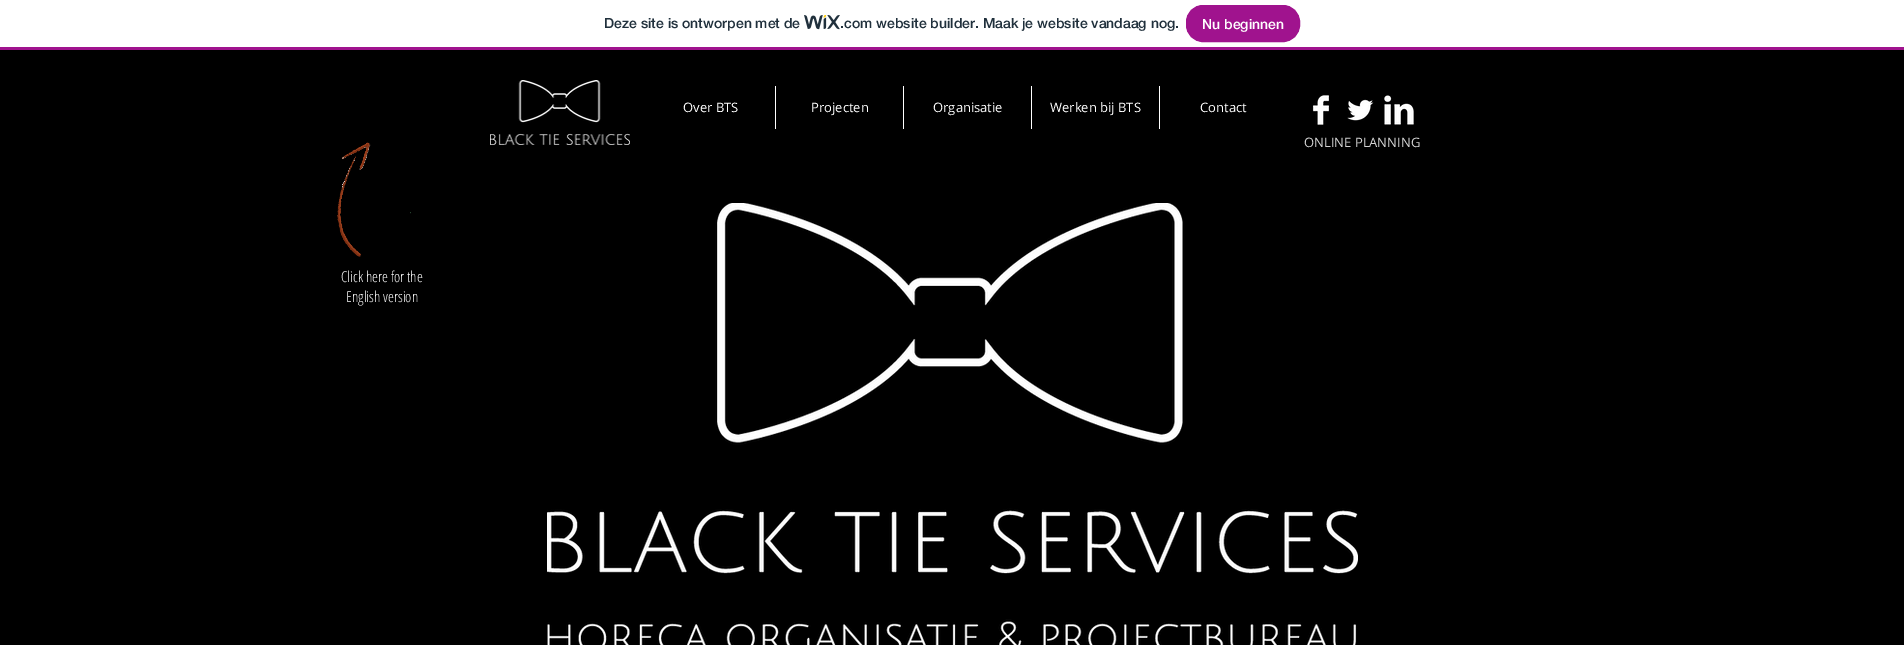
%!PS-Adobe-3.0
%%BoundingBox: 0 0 1904 645
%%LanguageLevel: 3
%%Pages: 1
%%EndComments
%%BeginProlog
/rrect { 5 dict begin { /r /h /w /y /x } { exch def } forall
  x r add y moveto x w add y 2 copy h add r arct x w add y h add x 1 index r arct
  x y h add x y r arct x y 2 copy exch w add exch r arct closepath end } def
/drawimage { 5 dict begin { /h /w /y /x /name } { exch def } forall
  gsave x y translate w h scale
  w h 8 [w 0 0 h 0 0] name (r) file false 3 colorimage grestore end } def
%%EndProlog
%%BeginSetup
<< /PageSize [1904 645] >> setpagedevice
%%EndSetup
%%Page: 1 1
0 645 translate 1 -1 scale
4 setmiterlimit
1 setgray
0 0 1904 645 rectfill
0.627 0.075 0.557 setrgbcolor
0 47 1904 3 rectfill
(images/1.raw) 804 15 36 15 drawimage
1186.5 5.5 113 36 16.5 rrect gsave fill grestore
stroke
0 setgray
0 50 1904 595 rectfill
(images/2.raw) 490 80 140 65 drawimage
1 setgray
775 86 1 43 rectfill
903 86 1 43 rectfill
1031 86 1 43 rectfill
1159 86 1 43 rectfill
(images/3.raw) 1312 95 17 30 drawimage
(images/4.raw) 1347 99 27 22 drawimage
(images/5.raw) 1384 95 30 30 drawimage
(images/6.raw) 337 142 74 115 drawimage
(images/7.raw) 547 203 811 442 drawimage
/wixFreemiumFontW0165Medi-Medium [14 0 0 -14 0 0] selectfont
0.125 0.188 0.235 setrgbcolor
604 28 moveto (Deze site is ontworpen met de) show
840 28 moveto (.com website builder. Maak je website vandaag nog.) show
1 setgray
1202 29 moveto (Nu beginnen) show
/OpenSans-Regular [13 0 0 -13 0 0] selectfont
683 112 moveto (Over BTS) show
811 112 moveto (Projecten) show
933 112 moveto (Organisatie) show
1050 112 moveto (Werken bij BTS) show
1200 112 moveto (Contact) show
0.831 setgray
1304 147 moveto (ONLINE PLANNING) show
/OpenSansCondensed-Light [15 0 0 -15 0 0] selectfont
1 setgray
341 282 moveto (Click here for the) show
346 302 moveto (English version) show
showpage
%%EOF
